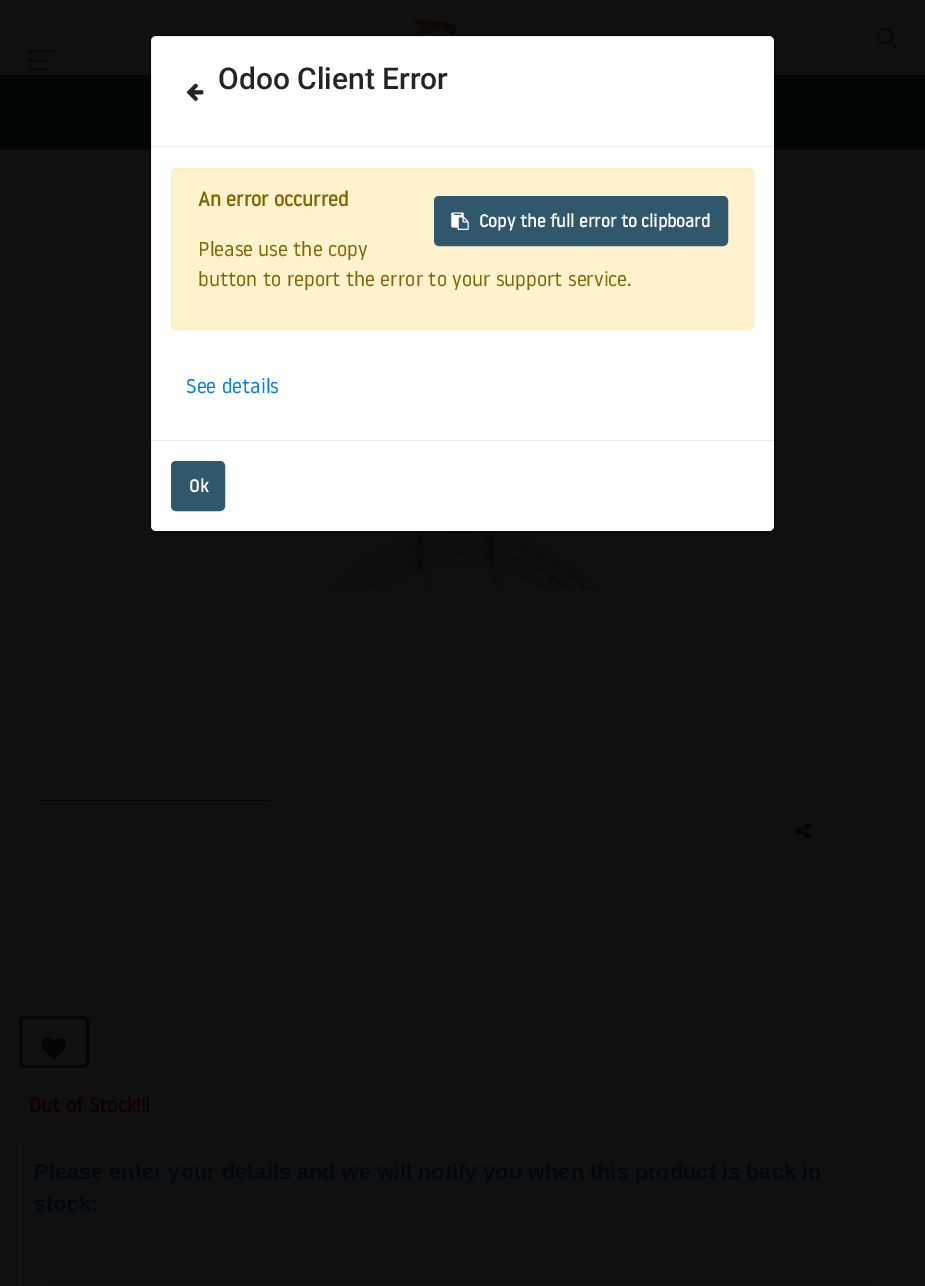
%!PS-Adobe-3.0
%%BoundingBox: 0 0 925 1286
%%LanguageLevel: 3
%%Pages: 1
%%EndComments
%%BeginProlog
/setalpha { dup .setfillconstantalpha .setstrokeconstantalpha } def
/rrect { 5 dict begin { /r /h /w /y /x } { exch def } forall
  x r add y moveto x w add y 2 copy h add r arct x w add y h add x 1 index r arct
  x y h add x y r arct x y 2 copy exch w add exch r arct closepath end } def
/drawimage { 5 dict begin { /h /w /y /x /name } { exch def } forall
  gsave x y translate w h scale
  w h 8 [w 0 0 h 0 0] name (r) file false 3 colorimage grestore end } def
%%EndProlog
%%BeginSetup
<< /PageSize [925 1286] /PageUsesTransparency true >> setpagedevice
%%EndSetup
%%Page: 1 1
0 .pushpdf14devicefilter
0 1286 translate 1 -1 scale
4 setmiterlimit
0.063 setgray
0 0 925 1286 rectfill
(images/3.raw) 398 6 81 30 drawimage
0.012 0.024 0.027 setrgbcolor
0 75 925 75 rectfill
(images/5.raw) 283 531 321 59 drawimage
0.2 setalpha
0 setgray
150.5 35.5 624 497 5.5 rrect stroke
1 setalpha
1 setgray
151 36 623 495 5 rrect fill
0.2 setalpha
0 setgray
150.5 35.5 624 497 5.5 rrect stroke
1 setalpha
0.914 0.925 0.937 setrgbcolor
151 146 623 1 rectfill
(images/1.raw) 187 83 17 18 drawimage
1 0.953 0.804 setrgbcolor
171.5 168.5 582 161 4.5 rrect gsave fill grestore
1 0.933 0.729 setrgbcolor
stroke
0.188 0.341 0.42 setrgbcolor
435.5 197.5 291 47 3.5 rrect gsave fill grestore
3 setlinewidth
stroke
(images/2.raw) 451 212 18 18 drawimage
0.914 0.925 0.937 setrgbcolor
151 440 623 1 rectfill
0.188 0.341 0.42 setrgbcolor
172.5 462.5 51 47 3.5 rrect gsave fill grestore
stroke
(images/4.raw) 876 27 22 22 drawimage
0.039 setgray
28 59 21 3 rectfill
28 50 28 3 rectfill
28 68 21 3 rectfill
0.012 0.024 0.027 setrgbcolor
39 800 232 1 rectfill
(images/6.raw) 795 822 17 17 drawimage
20.5 1017.5 67 49 4.5 rrect stroke
(images/7.raw) 41 1037 26 23 drawimage
0.051 setgray
1 setlinewidth
16.5 1138.5 882 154 5.5 rrect stroke
0.051 0.055 0.055 setrgbcolor
34.5 1280.5 846 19 12.5 rrect stroke
/Roboto-Medium [30 0 0 -30 0 0] selectfont
0.129 0.145 0.161 setrgbcolor
218 89 moveto (Odoo Client Error) show
/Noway-Bold [20 0 0 -20 0 0] selectfont
0.522 0.392 0.016 setrgbcolor
198 206 moveto (An error occurred) show
/Noway-Bold [17.5 0 0 -17.5 0 0] selectfont
1 setgray
479 227 moveto (Copy the full error to clipboard) show
/Noway-Regular [20 0 0 -20 0 0] selectfont
0.522 0.392 0.016 setrgbcolor
198 256 moveto (Please use the copy) show
198 286 moveto (button to report the error to your support service.) show
0 0.482 1 setrgbcolor
186 393 moveto (See details) show
/Noway-Bold [17.5 0 0 -17.5 0 0] selectfont
1 setgray
189 492 moveto (Ok) show
/Noway-Bold [20 0 0 -20 0 0] selectfont
0.063 0 0 setrgbcolor
29 1112 moveto (Out of Stock!!!) show
/LiberationSans-Bold [21.8 0 0 -21.8 0 0] selectfont
0 0.031 0.063 setrgbcolor
34 1179 moveto (Please enter your details and we will notify you when this product is back in) show
34 1211 moveto (stock:) show
.poppdf14devicefilter showpage
%%EOF
